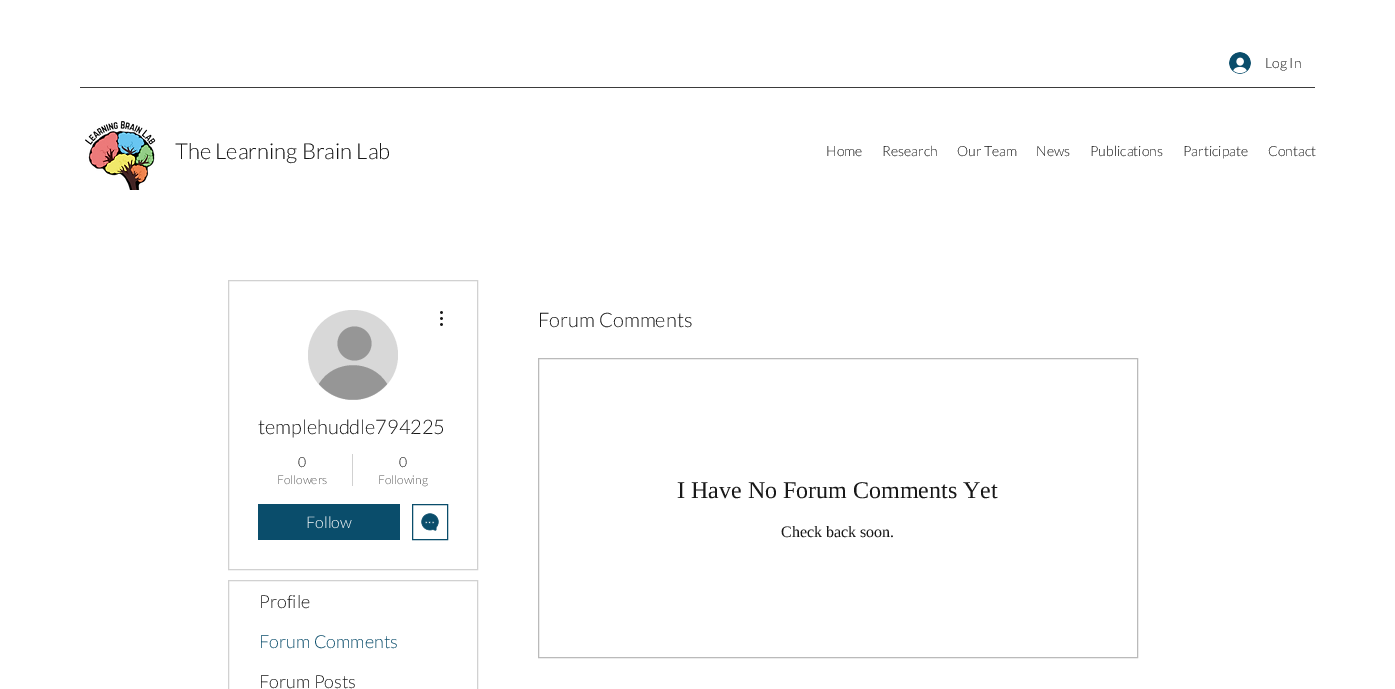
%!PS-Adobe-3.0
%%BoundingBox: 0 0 1395 689
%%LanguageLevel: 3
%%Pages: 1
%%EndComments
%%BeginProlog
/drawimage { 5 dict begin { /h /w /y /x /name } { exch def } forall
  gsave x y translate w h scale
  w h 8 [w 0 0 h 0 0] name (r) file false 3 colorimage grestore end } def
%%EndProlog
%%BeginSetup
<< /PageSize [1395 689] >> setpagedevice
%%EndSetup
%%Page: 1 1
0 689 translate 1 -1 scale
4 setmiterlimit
1 setgray
0 0 1395 689 rectfill
(images/1.raw) 1229 52 22 22 drawimage
0.231 setgray
80 87 1235 1 rectfill
(images/2.raw) 85 121 71 69 drawimage
0.82 setgray
228.5 280.5 249 289 rectstroke
0.847 setgray
newpath 353 355 45 0 360 arc closepath fill
0.588 setgray
newpath 354.5 343.5 17 0 360 arc closepath fill
newpath 387 384 moveto 369 405 337 405 319 384 curveto 334 359 372 359 387 384 curveto closepath fill
(images/3.raw) 440 311 3 15 drawimage
0.82 setgray
352 454 1 32 rectfill
0.039 0.302 0.42 setrgbcolor
258 504 142 36 rectfill
412.5 504.5 35 35 rectstroke
(images/4.raw) 421 513 18 18 drawimage
0.82 setgray
228.5 580.5 249 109 rectstroke
0.729 setgray
538.5 358.5 599 299 rectstroke
/Lato-Light [14 0 0 -14 0 0] selectfont
0.094 setgray
1265 68 moveto (Log In) show
/Lato-Light [22 0 0 -22 0 0] selectfont
175 159 moveto (The Learning Brain Lab) show
/Lato-Light [14 0 0 -14 0 0] selectfont
826 156 moveto (Home) show
882 156 moveto (Research) show
957 156 moveto (Our Team) show
1036 156 moveto (News) show
1090 156 moveto (Publications) show
1183 156 moveto (Participate) show
1268 156 moveto (Contact) show
/Lato-Light [20 0 0 -20 0 0] selectfont
258 434 moveto (templehuddle794225) show
/Lato-Light [14 0 0 -14 0 0] selectfont
298 467 moveto (0) show
/Lato-Light [12 0 0 -12 0 0] selectfont
0.365 setgray
277 484 moveto (Followers) show
/Lato-Light [14 0 0 -14 0 0] selectfont
0.094 setgray
399 467 moveto (0) show
/Lato-Light [12 0 0 -12 0 0] selectfont
0.365 setgray
378 484 moveto (Following) show
/Lato-Light [16 0 0 -16 0 0] selectfont
1 setgray
306 528 moveto (Follow) show
/Lato-Light [18 0 0 -18 0 0] selectfont
0.094 setgray
259 608 moveto (Profile) show
0.039 0.302 0.42 setrgbcolor
259 648 moveto (Forum Comments) show
0.094 setgray
259 688 moveto (Forum Posts) show
/Lato-Light [20 0 0 -20 0 0] selectfont
538 327 moveto (Forum Comments) show
/LiberationSerif-Regular [24 0 0 -24 0 0] selectfont
677 498 moveto (I Have No Forum Comments Yet) show
/LiberationSerif-Regular [16 0 0 -16 0 0] selectfont
781 537 moveto (Check back soon.) show
showpage
%%EOF
